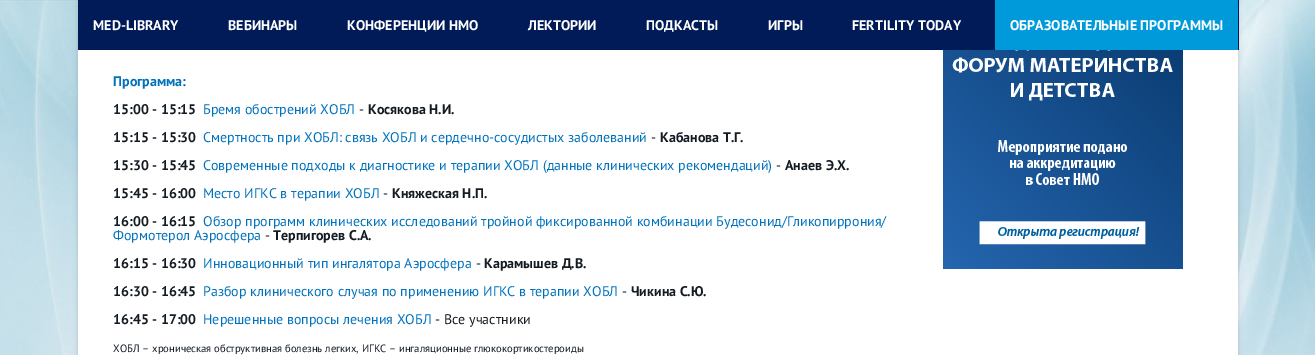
%!PS-Adobe-3.0
%%BoundingBox: 0 0 1315 355
%%LanguageLevel: 3
%%Pages: 1
%%EndComments
%%BeginProlog
/setalpha { dup .setfillconstantalpha .setstrokeconstantalpha } def
/rrect { 5 dict begin { /r /h /w /y /x } { exch def } forall
  x r add y moveto x w add y 2 copy h add r arct x w add y h add x 1 index r arct
  x y h add x y r arct x y 2 copy exch w add exch r arct closepath end } def
/softshadow { 12 dict begin { /a /b /q /h /w /y /x } { exch def } forall gsave /was 0 def
  9 -2 -9 { dup b mul 4 div /e exch def 1 sub .425 mul 2.718 exch exp 1 add a .99 .min exch div /now exch def
    1 1 now sub 1 was sub div sub setalpha /was now def
    w h .min e 2 mul add 0 gt { x e sub y e sub w e 2 mul add h e 2 mul add
      q e add b .6 mul add w h .min 2 div e add .min 0 .max rrect fill } if } for grestore end } def
/drawimage { 5 dict begin { /h /w /y /x /name } { exch def } forall
  gsave x y translate w h scale
  w h 8 [w 0 0 h 0 0] name (r) file false 3 colorimage grestore end } def
%%EndProlog
%%BeginSetup
<< /PageSize [1315 355] /PageUsesTransparency true >> setpagedevice
%%EndSetup
%%Page: 1 1
0 .pushpdf14devicefilter
0 355 translate 1 -1 scale
4 setmiterlimit
1 setgray
0 0 1315 355 rectfill
(images/1.raw) 0 0 1315 355 drawimage
0.4 0.424 0.451 setrgbcolor
78 -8 1160 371 0 2.5 0.31 softshadow
0.004 0.106 0.345 setrgbcolor
78 0 1161 50 rectfill
0 0.604 0.855 setrgbcolor
995 0 243 50 rectfill
1 setgray
78 50 1160 305 rectfill
(images/2.raw) 943 50 240 219 drawimage
/PTSans-Bold [14 0 0 -14 0 0] selectfont
93 30 moveto (MED-LIBRARY) show
228 30 moveto (ВЕБИНАРЫ) show
347 30 moveto (КОНФЕРЕНЦИИ НМО) show
528 30 moveto (ЛЕКТОРИИ) show
646 30 moveto (ПОДКАСТЫ) show
768 30 moveto (ИГРЫ) show
852 30 moveto (FERTILITY TODAY) show
1010 30 moveto (ОБРАЗОВАТЕЛЬНЫЕ ПРОГРАММЫ) show
0 0.447 0.737 setrgbcolor
113 86 moveto (Программа:) show
0.078 0.106 0.133 setrgbcolor
113 114 moveto (15:00 - 15:15) show
/PTSans-Regular [14 0 0 -14 0 0] selectfont
0 0.447 0.737 setrgbcolor
203 114 moveto (Бремя обострений ХОБЛ) show
0.078 0.106 0.133 setrgbcolor
359 114 moveto (-) show
/PTSans-Bold [14 0 0 -14 0 0] selectfont
368 114 moveto (Косякова Н.И.) show
113 142 moveto (15:15 - 15:30) show
/PTSans-Regular [14 0 0 -14 0 0] selectfont
0 0.447 0.737 setrgbcolor
203 142 moveto (Смертность при ХОБЛ: связь ХОБЛ и сердечно-сосудистых заболеваний) show
0.078 0.106 0.133 setrgbcolor
651 142 moveto (-) show
/PTSans-Bold [14 0 0 -14 0 0] selectfont
660 142 moveto (Кабанова Т.Г.) show
113 170 moveto (15:30 - 15:45) show
/PTSans-Regular [14 0 0 -14 0 0] selectfont
0 0.447 0.737 setrgbcolor
203 170 moveto (Современные подходы к диагностике и терапии ХОБЛ \(данные клинических рекомендаций\)) show
0.078 0.106 0.133 setrgbcolor
776 170 moveto (-) show
/PTSans-Bold [14 0 0 -14 0 0] selectfont
785 170 moveto (Анаев Э.Х.) show
113 198 moveto (15:45 - 16:00) show
/PTSans-Regular [14 0 0 -14 0 0] selectfont
0 0.447 0.737 setrgbcolor
203 198 moveto (Место ИГКС в терапии ХОБЛ) show
0.078 0.106 0.133 setrgbcolor
383 198 moveto (-) show
/PTSans-Bold [14 0 0 -14 0 0] selectfont
392 198 moveto (Княжеская Н.П.) show
113 226 moveto (16:00 - 16:15) show
/PTSans-Regular [14 0 0 -14 0 0] selectfont
0 0.447 0.737 setrgbcolor
203 226 moveto (Обзор программ клинических исследований тройной фиксированной комбинации Будесонид/Гликопиррония/) show
113 240 moveto (Формотерол Аэросфера) show
0.078 0.106 0.133 setrgbcolor
265 240 moveto (-) show
/PTSans-Bold [14 0 0 -14 0 0] selectfont
273 240 moveto (Терпигорев С.А.) show
113 268 moveto (16:15 - 16:30) show
/PTSans-Regular [14 0 0 -14 0 0] selectfont
0 0.447 0.737 setrgbcolor
203 268 moveto (Инновационный тип ингалятора Аэросфера) show
0.078 0.106 0.133 setrgbcolor
476 268 moveto (-) show
/PTSans-Bold [14 0 0 -14 0 0] selectfont
484 268 moveto (Карамышев Д.В.) show
113 296 moveto (16:30 - 16:45) show
/PTSans-Regular [14 0 0 -14 0 0] selectfont
0 0.447 0.737 setrgbcolor
203 296 moveto (Разбор клинического случая по применению ИГКС в терапии ХОБЛ) show
0.078 0.106 0.133 setrgbcolor
622 296 moveto (-) show
/PTSans-Bold [14 0 0 -14 0 0] selectfont
631 296 moveto (Чикина С.Ю.) show
113 324 moveto (16:45 - 17:00) show
/PTSans-Regular [14 0 0 -14 0 0] selectfont
0 0.447 0.737 setrgbcolor
203 324 moveto (Нерешенные вопросы лечения ХОБЛ) show
0.078 0.106 0.133 setrgbcolor
435 324 moveto (- Все участники) show
/PTSans-Regular [10.65 0 0 -10.65 0 0] selectfont
113 352 moveto (ХОБЛ – хроническая обструктивная болезнь легких, ИГКС – ингаляционные глюкокортикостероиды) show
.poppdf14devicefilter showpage
%%EOF
